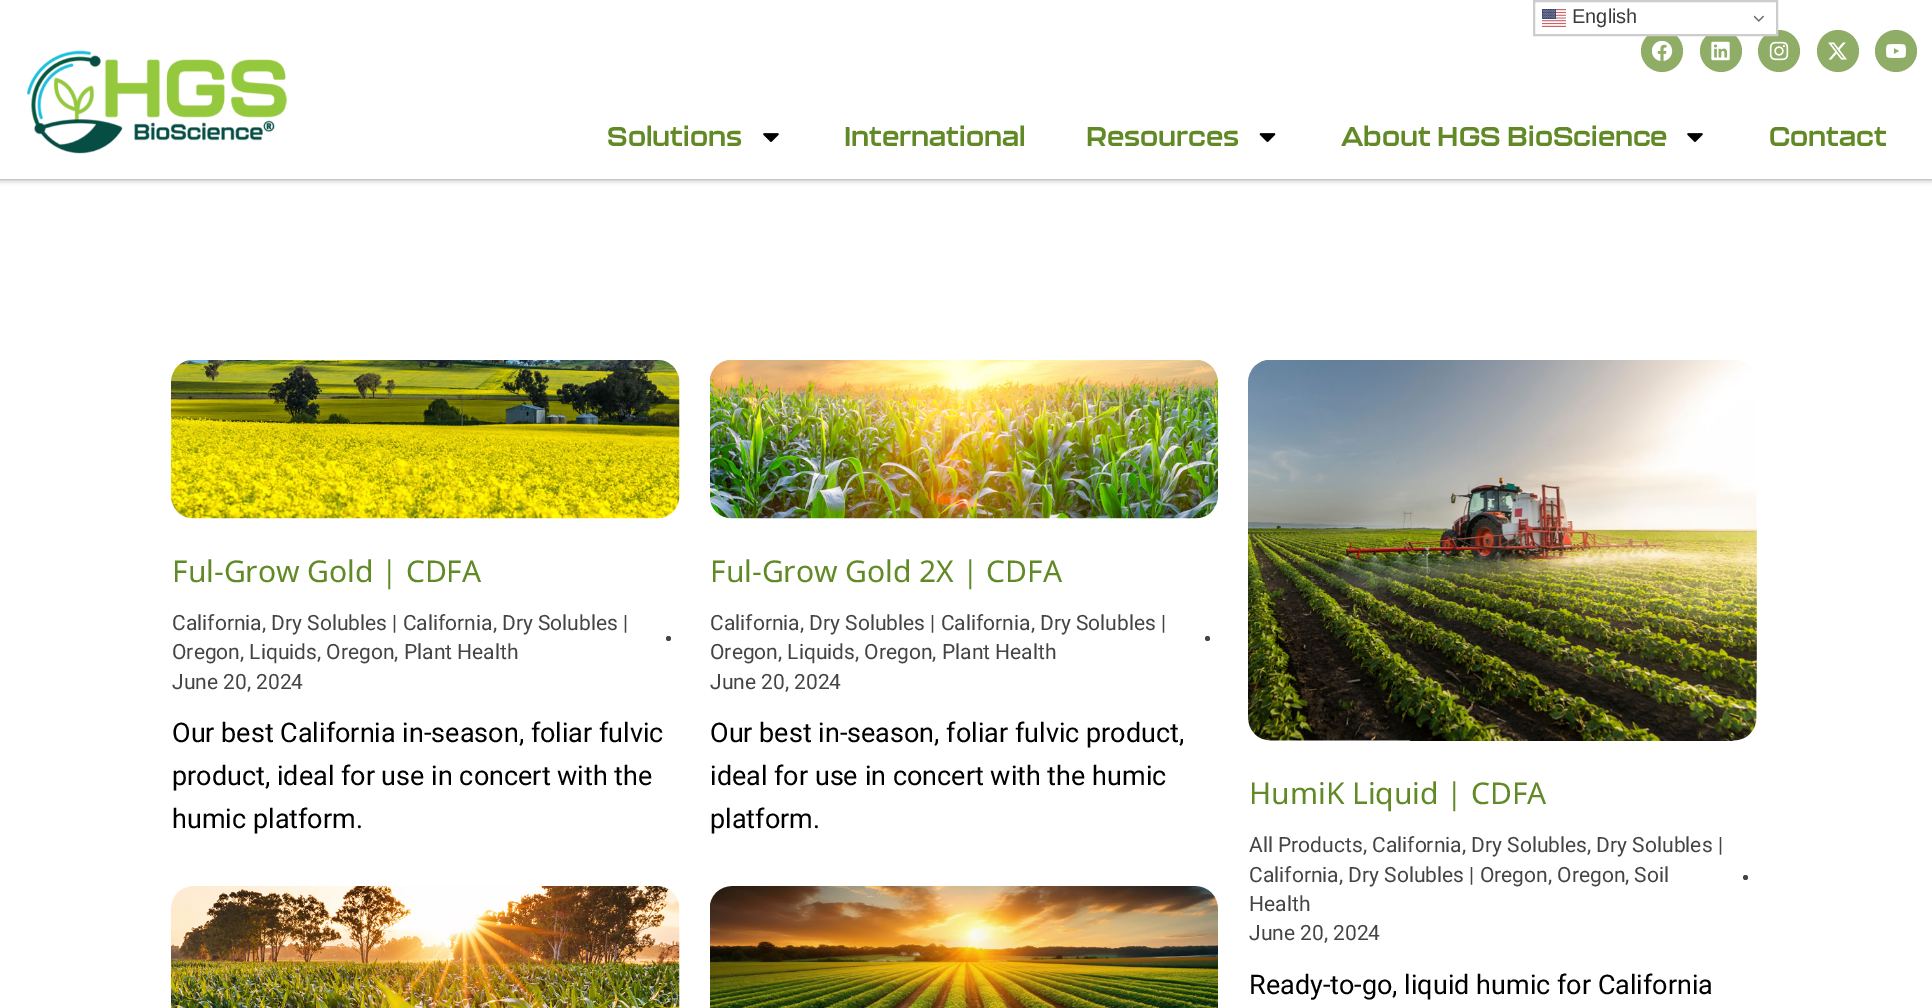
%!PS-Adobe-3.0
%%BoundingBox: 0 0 1932 1008
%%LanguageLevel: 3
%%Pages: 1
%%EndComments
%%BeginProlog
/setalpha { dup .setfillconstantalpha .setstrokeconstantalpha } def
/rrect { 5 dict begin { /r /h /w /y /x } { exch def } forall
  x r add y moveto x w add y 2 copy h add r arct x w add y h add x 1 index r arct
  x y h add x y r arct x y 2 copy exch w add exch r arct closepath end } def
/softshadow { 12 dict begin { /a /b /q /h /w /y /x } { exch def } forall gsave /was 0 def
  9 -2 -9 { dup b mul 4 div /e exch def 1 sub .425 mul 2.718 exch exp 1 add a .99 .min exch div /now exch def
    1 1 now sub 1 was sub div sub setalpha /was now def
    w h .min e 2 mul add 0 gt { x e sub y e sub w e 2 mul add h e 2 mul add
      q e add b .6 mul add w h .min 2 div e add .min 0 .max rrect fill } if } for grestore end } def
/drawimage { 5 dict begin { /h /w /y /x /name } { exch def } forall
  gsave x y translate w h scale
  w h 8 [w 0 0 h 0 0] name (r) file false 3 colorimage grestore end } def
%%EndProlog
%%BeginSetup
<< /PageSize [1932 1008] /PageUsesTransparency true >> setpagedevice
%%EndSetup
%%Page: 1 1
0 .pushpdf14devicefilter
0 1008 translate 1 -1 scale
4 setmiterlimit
1 setgray
0 0 1932 1008 rectfill
gsave
newpath 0 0 moveto 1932 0 lineto 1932 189 lineto 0 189 lineto closepath 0 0 moveto 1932 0 lineto 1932 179 lineto 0 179 lineto closepath eoclip newpath
0 setgray
0 0 1932 179 0 3 0.5 softshadow
grestore
0.565 0.678 0.408 setrgbcolor
newpath 1662 51 21 0 360 arc closepath fill
newpath 1721 51 21 0 360 arc closepath fill
newpath 1779 51 21 0 360 arc closepath fill
1 setgray
1649 30 127 4 rectfill
0.8 setgray
2 setlinewidth
1534 1 243 34 rectstroke
(images/1.raw) 1542 9 24 18 drawimage
(images/2.raw) 1754 15 10 7 drawimage
0.84 setalpha
1 setgray
0 178 1932 1 rectfill
1 setalpha
(images/3.raw) 27 50 261 104 drawimage
(images/4.raw) 1652 41 21 20 drawimage
(images/5.raw) 1711 41 19 20 drawimage
(images/6.raw) 1769 41 20 20 drawimage
0.565 0.678 0.408 setrgbcolor
newpath 1838 51 21 0 360 arc closepath fill
(images/7.raw) 1828 42 19 18 drawimage
newpath 1896 51 21 0 360 arc closepath fill
(images/8.raw) 1886 44 20 14 drawimage
(images/9.raw) 763 133 16 9 drawimage
(images/10.raw) 1259 133 17 9 drawimage
(images/9.raw) 1687 133 16 9 drawimage
(images/11.raw) 171 360 509 159 drawimage
0.267 setgray
newpath 668.5 638.5 2.5 0 360 arc closepath fill
(images/12.raw) 710 360 508 159 drawimage
newpath 1207.5 638.5 2.5 0 360 arc closepath fill
(images/13.raw) 171 886 509 122 drawimage
(images/14.raw) 710 886 508 122 drawimage
(images/15.raw) 1248 360 509 381 drawimage
newpath 1745.5 877.5 2.5 0 360 arc closepath fill
/LiberationSans-Regular [20 0 0 -20 0 0] selectfont
0.227 setgray
1572 23 moveto (English) show
/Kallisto-Bold [27 0 0 -27 0 0] selectfont
0.38 0.541 0.153 setrgbcolor
607 146 moveto (Solutions) show
844 146 moveto (International) show
1086 146 moveto (Resources) show
1341 146 moveto (About HGS BioScience) show
1769 146 moveto (Contact) show
/NotoSans-Regular [30 0 0 -30 0 0] selectfont
172 582 moveto (Ful-Grow Gold | CDFA) show
/Roboto-Regular [21 0 0 -21 0 0] selectfont
0.267 setgray
172 630 moveto (California, Dry Solubles | California, Dry Solubles |) show
172 659 moveto (Oregon, Liquids, Oregon, Plant Health) show
172 689 moveto (June 20, 2024) show
/Roboto-Regular [27 0 0 -27 0 0] selectfont
0 setgray
172 742 moveto (Our best California in-season, foliar fulvic) show
172 785 moveto (product, ideal for use in concert with the) show
172 828 moveto (humic platform.) show
/NotoSans-Regular [30 0 0 -30 0 0] selectfont
0.38 0.541 0.153 setrgbcolor
710 582 moveto (Ful-Grow Gold 2X | CDFA) show
/Roboto-Regular [21 0 0 -21 0 0] selectfont
0.267 setgray
710 630 moveto (California, Dry Solubles | California, Dry Solubles |) show
710 659 moveto (Oregon, Liquids, Oregon, Plant Health) show
710 689 moveto (June 20, 2024) show
/Roboto-Regular [27 0 0 -27 0 0] selectfont
0 setgray
710 742 moveto (Our best in-season, foliar fulvic product,) show
710 785 moveto (ideal for use in concert with the humic) show
710 828 moveto (platform.) show
/NotoSans-Regular [30 0 0 -30 0 0] selectfont
0.38 0.541 0.153 setrgbcolor
1249 804 moveto (HumiK Liquid | CDFA) show
/Roboto-Regular [21 0 0 -21 0 0] selectfont
0.267 setgray
1249 852 moveto (All Products, California, Dry Solubles, Dry Solubles |) show
1249 882 moveto (California, Dry Solubles | Oregon, Oregon, Soil) show
1249 911 moveto (Health) show
1249 940 moveto (June 20, 2024) show
/Roboto-Regular [27 0 0 -27 0 0] selectfont
0 setgray
1249 994 moveto (Ready-to-go, liquid humic for California) show
.poppdf14devicefilter showpage
%%EOF
